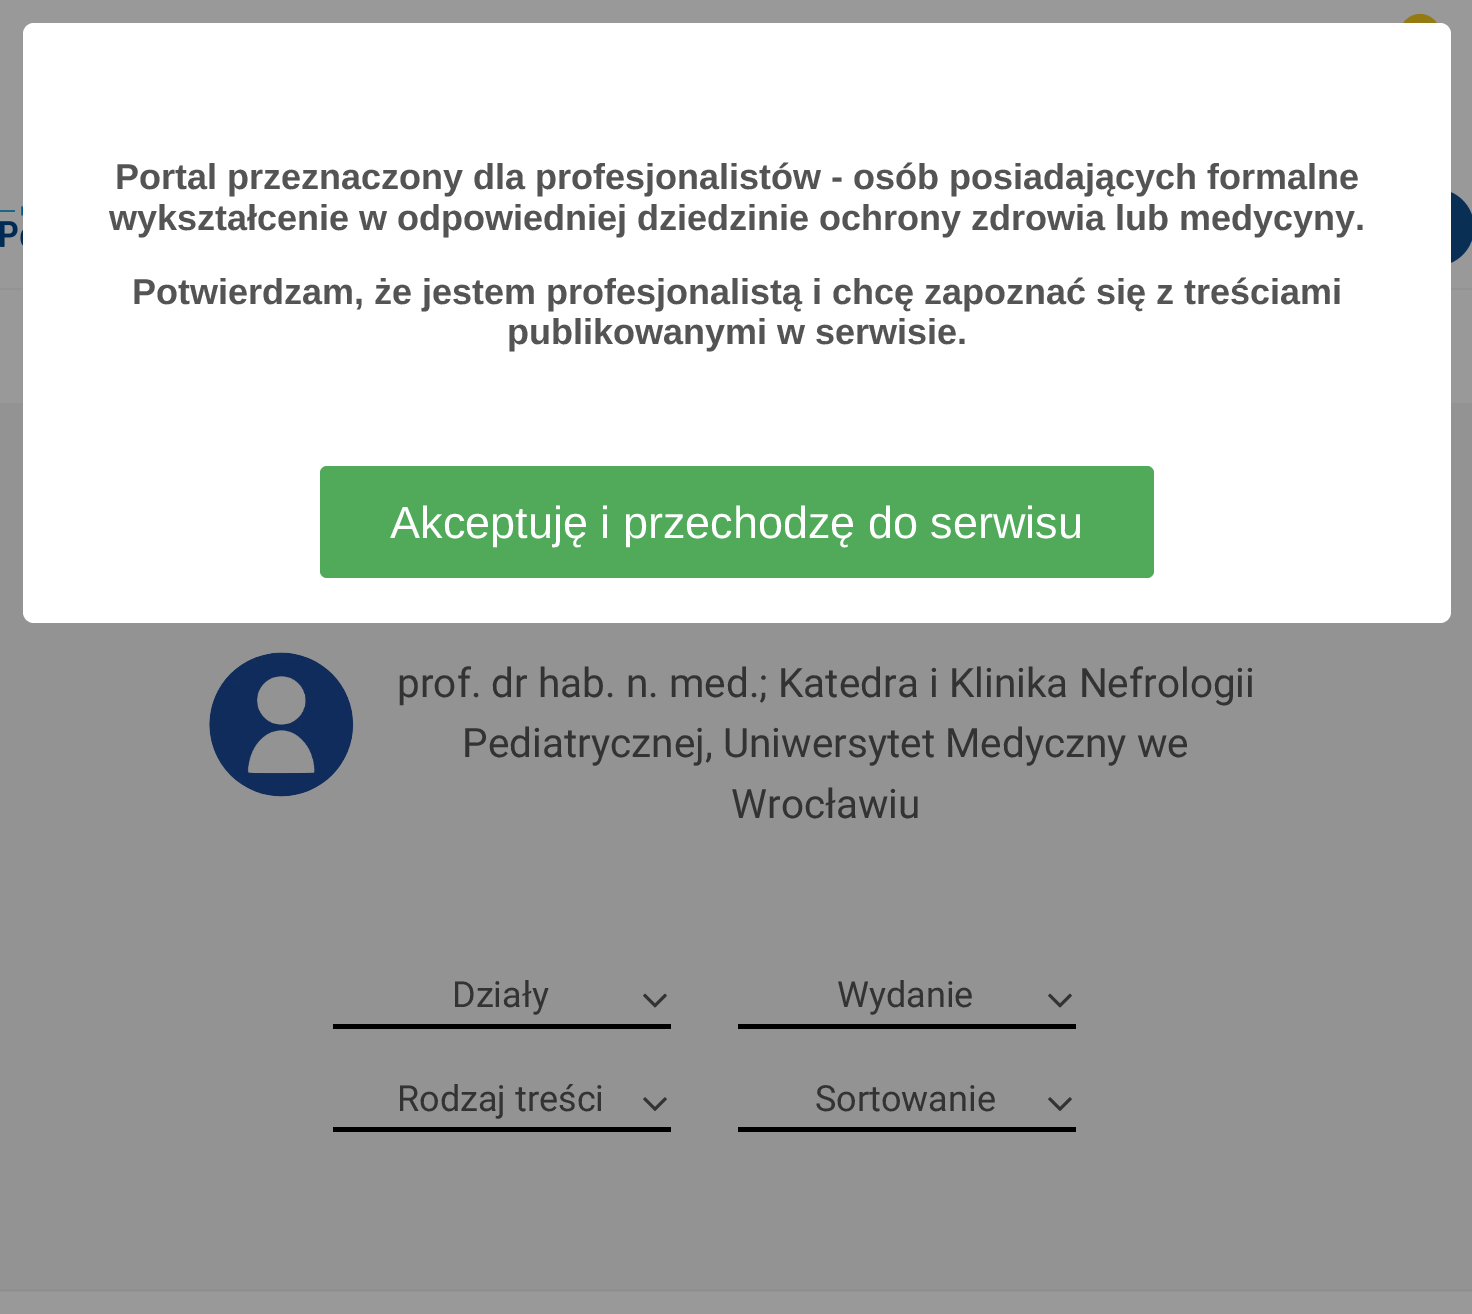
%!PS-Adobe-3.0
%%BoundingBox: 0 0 1472 1314
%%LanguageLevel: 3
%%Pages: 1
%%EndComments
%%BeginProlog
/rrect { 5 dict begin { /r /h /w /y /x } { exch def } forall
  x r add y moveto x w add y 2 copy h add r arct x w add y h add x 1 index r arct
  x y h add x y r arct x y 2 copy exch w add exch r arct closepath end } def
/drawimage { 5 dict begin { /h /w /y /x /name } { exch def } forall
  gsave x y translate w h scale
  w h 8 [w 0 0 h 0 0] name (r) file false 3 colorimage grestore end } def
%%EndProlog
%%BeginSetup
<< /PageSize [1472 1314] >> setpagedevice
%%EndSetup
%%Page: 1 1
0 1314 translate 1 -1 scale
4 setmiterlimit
0.6 setgray
0 0 1472 1314 rectfill
0.576 setgray
0 403 1472 889 rectfill
0.58 0.478 0.067 setrgbcolor
newpath 1420 34 20 0 360 arc closepath fill
0.039 0.184 0.333 setrgbcolor
1179 189 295 77 38.5 rrect fill
0.576 setgray
0 288 1472 2 rectfill
1 setgray
23 23 1428 600 11 rrect fill
0.318 0.667 0.353 setrgbcolor
320 466 834 112 7 rrect fill
(images/1.raw) 0 206 23 41 drawimage
0.561 setgray
0 1289 1472 2 rectfill
(images/2.raw) 209 652 145 145 drawimage
0 setgray
333 1024 338 5 rectfill
(images/3.raw) 643 993 24 15 drawimage
738 1024 338 5 rectfill
(images/3.raw) 1048 993 24 15 drawimage
333 1127 338 5 rectfill
(images/4.raw) 643 1097 24 14 drawimage
738 1127 338 5 rectfill
(images/4.raw) 1048 1097 24 14 drawimage
/LiberationSans-Bold [36 0 0 -36 0 0] selectfont
0.329 setgray
115 189 moveto (Portal przeznaczony dla profesjonalistów - osób posiadających formalne) show
109 230 moveto (wykształcenie w odpowiedniej dziedzinie ochrony zdrowia lub medycyny.) show
132 304 moveto (Potwierdzam, że jestem profesjonalistą i chcę zapoznać się z treściami) show
507 344 moveto (publikowanymi w serwisie.) show
/LiberationSans-Regular [45 0 0 -45 0 0] selectfont
1 setgray
390 538 moveto (Akceptuję i przechodzę do serwisu) show
/Roboto-Regular [40.5 0 0 -40.5 0 0] selectfont
0.2 setgray
397 697 moveto (prof. dr hab. n. med.; Katedra i Klinika Nefrologii) show
462 757 moveto (Pediatrycznej, Uniwersytet Medyczny we) show
731 818 moveto (Wrocławiu) show
/Roboto-Regular [36 0 0 -36 0 0] selectfont
452 1007 moveto (Działy) show
837 1007 moveto (Wydanie) show
397 1111 moveto (Rodzaj treści) show
815 1111 moveto (Sortowanie) show
showpage
%%EOF
